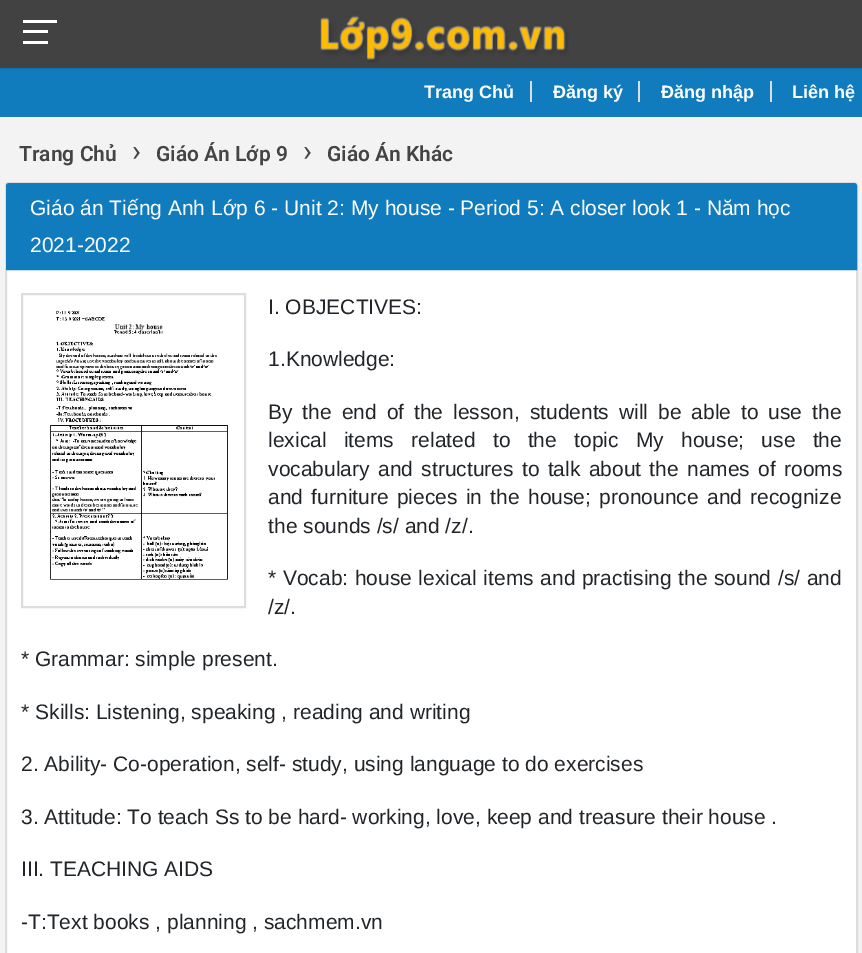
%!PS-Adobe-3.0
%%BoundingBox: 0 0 862 953
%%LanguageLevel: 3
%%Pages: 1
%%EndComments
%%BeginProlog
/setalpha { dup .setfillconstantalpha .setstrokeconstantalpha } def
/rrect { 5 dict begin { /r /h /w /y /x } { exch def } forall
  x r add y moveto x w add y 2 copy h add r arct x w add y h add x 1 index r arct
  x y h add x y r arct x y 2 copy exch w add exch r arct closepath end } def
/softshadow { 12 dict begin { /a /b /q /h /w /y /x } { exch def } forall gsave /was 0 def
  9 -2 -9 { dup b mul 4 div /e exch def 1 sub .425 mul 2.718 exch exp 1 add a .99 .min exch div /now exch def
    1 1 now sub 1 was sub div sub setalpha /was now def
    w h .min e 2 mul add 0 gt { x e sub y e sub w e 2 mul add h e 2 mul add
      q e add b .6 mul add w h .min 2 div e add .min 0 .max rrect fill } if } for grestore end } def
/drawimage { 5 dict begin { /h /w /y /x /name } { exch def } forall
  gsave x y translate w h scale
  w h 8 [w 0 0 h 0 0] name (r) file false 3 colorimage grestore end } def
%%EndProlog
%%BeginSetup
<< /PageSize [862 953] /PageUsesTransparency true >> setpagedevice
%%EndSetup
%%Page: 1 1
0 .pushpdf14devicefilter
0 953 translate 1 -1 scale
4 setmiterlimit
0.953 setgray
0 0 862 953 rectfill
0.063 0.482 0.741 setrgbcolor
0 68 862 49 rectfill
0 setgray
0 0 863 68 0 1 0.3 softshadow
0.259 setgray
0 0 862 68 rectfill
1 setgray
23 30 25 3 rectfill
23 20 34 3 rectfill
23 41 25 3 rectfill
(images/1.raw) 320 15 249 48 drawimage
0.867 setgray
530 81 2 21 rectfill
638 81 2 21 rectfill
770 81 2 21 rectfill
1 setgray
6 183 851 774 2 rrect gsave fill grestore
0.867 setgray
2 setlinewidth
stroke
0.063 0.482 0.741 setrgbcolor
newpath 9 184 moveto 854 184 lineto 855 184 856 185 856 186 curveto 856 269 lineto 7 269 lineto 7 186 lineto 7 185 8 184 9 184 curveto closepath gsave fill grestore
stroke
0.867 setgray
22 294 223 313 rectstroke
(images/2.raw) 50 310 178 270 drawimage
/LiberationSans-Bold [18 0 0 -18 0 0] selectfont
1 setgray
424 98 moveto (Trang Chủ) show
553 98 moveto (Đăng ký) show
661 98 moveto (Đăng nhập) show
792 98 moveto (Liên hệ) show
/Roboto-SemiBold [21 0 0 -21 0 0] selectfont
0.267 setgray
19 161 moveto (Trang Chủ) show
/Roboto-Regular [30 0 0 -30 0 0] selectfont
132 161 moveto (›) show
/Roboto-SemiBold [21 0 0 -21 0 0] selectfont
156 161 moveto (Giáo Án Lớp 9) show
/Roboto-Regular [30 0 0 -30 0 0] selectfont
303 161 moveto (›) show
/Roboto-SemiBold [21 0 0 -21 0 0] selectfont
327 161 moveto (Giáo Án Khác) show
/LiberationSans-Regular [21 0 0 -21 0 0] selectfont
1 setgray
30 215 moveto (Giáo án Tiếng Anh Lớp 6 - Unit 2: My house - Period 5: A closer look 1 - Năm học) show
30 252 moveto (2021-2022) show
0.129 0.145 0.161 setrgbcolor
268 314 moveto (I. OBJECTIVES:) show
268 366 moveto (1.Knowledge:) show
268 419 moveto 4.1 0 32 (By the end of the lesson, students will be able to use the) widthshow
268 447 moveto 11.5 0 32 (lexical items related to the topic My house; use the) widthshow
268 476 moveto 2.5 0 32 (vocabulary and structures to talk about the names of rooms) widthshow
268 504 moveto 2.5 0 32 (and furniture pieces in the house; pronounce and recognize) widthshow
268 533 moveto (the sounds /s/ and /z/.) show
268 585 moveto 0.75 0 32 (* Vocab: house lexical items and practising the sound /s/ and) widthshow
268 614 moveto (/z/.) show
21 666 moveto (* Grammar: simple present.) show
21 719 moveto (* Skills: Listening, speaking , reading and writing) show
21 771 moveto (2. Ability- Co-operation, self- study, using language to do exercises) show
21 824 moveto (3. Attitude: To teach Ss to be hard- working, love, keep and treasure their house .) show
21 876 moveto (III. TEACHING AIDS) show
21 929 moveto (-T:Text books , planning , sachmem.vn) show
.poppdf14devicefilter showpage
%%EOF
